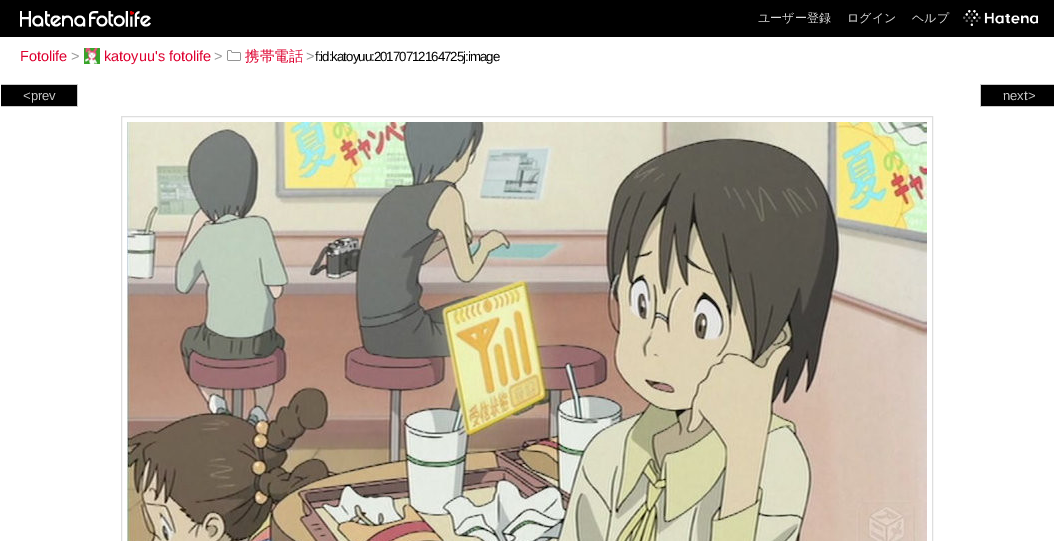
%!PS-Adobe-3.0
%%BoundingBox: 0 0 1054 541
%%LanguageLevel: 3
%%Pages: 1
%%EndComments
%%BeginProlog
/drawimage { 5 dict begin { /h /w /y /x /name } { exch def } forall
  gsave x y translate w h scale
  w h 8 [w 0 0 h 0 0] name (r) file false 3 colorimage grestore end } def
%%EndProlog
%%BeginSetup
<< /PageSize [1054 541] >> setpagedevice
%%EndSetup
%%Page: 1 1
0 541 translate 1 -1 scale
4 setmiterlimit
1 setgray
0 0 1054 541 rectfill
0 setgray
0 0 1054 37 rectfill
(images/1.raw) 20 11 66 16 drawimage
(images/2.raw) 89 11 62 16 drawimage
(images/3.raw) 963 10 75 16 drawimage
(images/4.raw) 84 48 16 16 drawimage
(images/5.raw) 227 50 14 11 drawimage
1 85 76 21 rectfill
0.8 setgray
1 84 77 1 rectfill
77 84 1 23 rectfill
1 106 77 1 rectfill
0 setgray
981 85 73 21 rectfill
0.8 setgray
980 84 74 1 rectfill
980 106 74 1 rectfill
980 84 1 23 rectfill
0.871 setgray
121.5 116.5 811 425 rectstroke
(images/6.raw) 127 122 800 419 drawimage
/WenQuanYiZenHei-Medium [12 0 0 -12 0 0] selectfont
0.867 setgray
758 22 moveto (ユーザー登録) show
847 22 moveto (ログイン) show
912 22 moveto (ヘルプ) show
/LiberationSans-Regular [14.5 0 0 -14.5 0 0] selectfont
0.871 0 0.184 setrgbcolor
20 61 moveto (Fotolife) show
0.6 setgray
71 61 moveto (>) show
0.871 0 0.184 setrgbcolor
104 61 moveto (katoyuu's fotolife) show
0.6 setgray
214 61 moveto (>) show
/WenQuanYiZenHei-Medium [14.5 0 0 -14.5 0 0] selectfont
0.871 0 0.184 setrgbcolor
245 61 moveto (携帯電話) show
/LiberationSans-Regular [14.5 0 0 -14.5 0 0] selectfont
0.6 setgray
306 61 moveto (>) show
/LiberationSans-Regular [13.3 0 0 -13.3 0 0] selectfont
0 setgray
315 61 moveto -1 0 (f:id:katoyuu:20170712164725j:image) ashow
/LiberationSans-Regular [13 0 0 -13 0 0] selectfont
0.8 setgray
23 100 moveto (<prev) show
1003 100 moveto (next>) show
showpage
%%EOF
